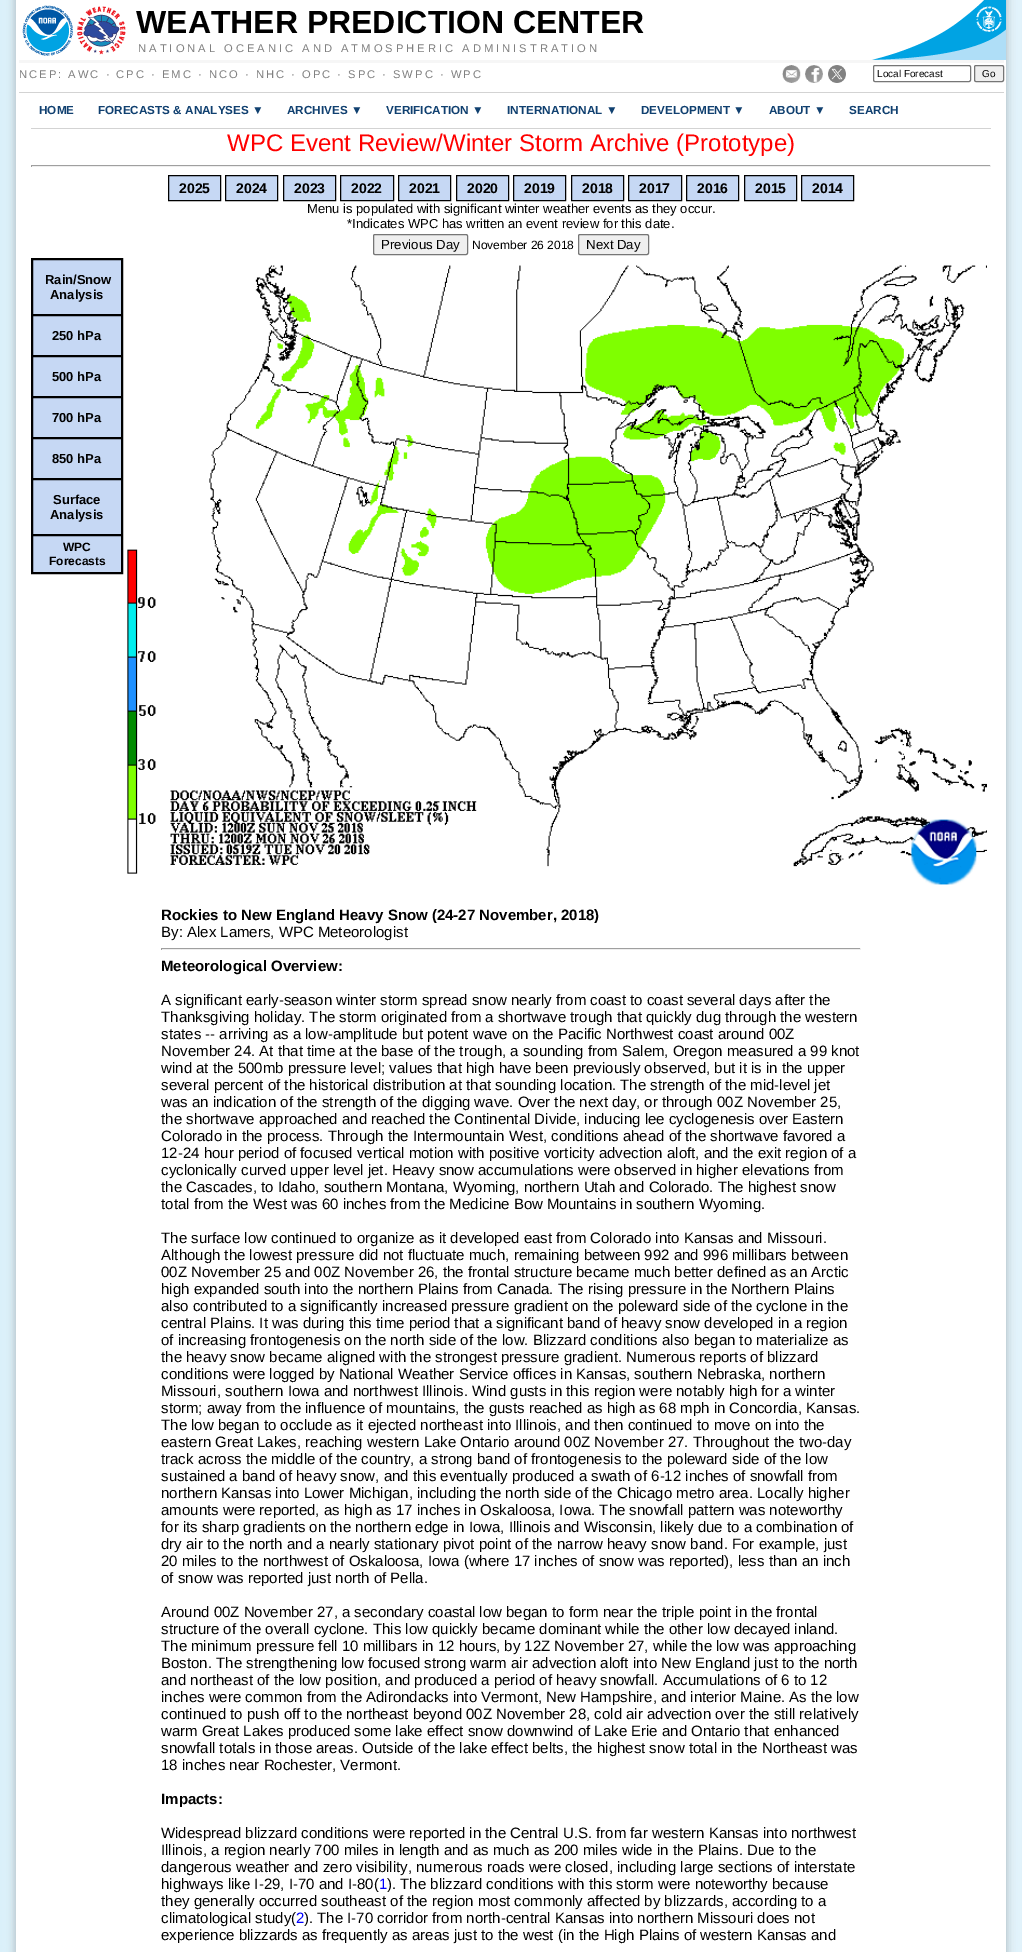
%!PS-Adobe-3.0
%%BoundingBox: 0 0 1022 1952
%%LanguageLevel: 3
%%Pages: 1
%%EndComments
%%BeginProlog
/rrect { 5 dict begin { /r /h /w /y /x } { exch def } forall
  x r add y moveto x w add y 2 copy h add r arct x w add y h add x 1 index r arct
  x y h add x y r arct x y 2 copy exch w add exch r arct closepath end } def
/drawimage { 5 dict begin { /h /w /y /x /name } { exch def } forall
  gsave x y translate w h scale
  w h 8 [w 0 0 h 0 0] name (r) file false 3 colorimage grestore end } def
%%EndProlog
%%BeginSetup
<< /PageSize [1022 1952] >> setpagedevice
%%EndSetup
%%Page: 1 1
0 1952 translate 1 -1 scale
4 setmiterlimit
1 setgray
0 0 1022 1952 rectfill
(images/1.raw) 0 0 1022 1952 drawimage
(images/2.raw) 22 5 51 51 drawimage
(images/3.raw) 77 6 49 49 drawimage
(images/4.raw) 871 0 135 60 drawimage
0.965 setgray
19 60 985 3 rectfill
0.827 setgray
19 92 985 1 rectfill
(images/5.raw) 782 65 19 18 drawimage
(images/6.raw) 805 65 18 18 drawimage
(images/7.raw) 828 65 18 18 drawimage
0.463 setgray
873.5 65.5 97 16 1.5 rrect stroke
0.937 setgray
974.5 65.5 29 16 1.5 rrect gsave fill grestore
0.463 setgray
stroke
0.827 setgray
31 128 960 1 rectfill
0.624 setgray
31 165 960 1 rectfill
0.933 setgray
990 165 1 2 rectfill
31 166 960 1 rectfill
0.624 setgray
31 165 1 2 rectfill
0.776 0.847 0.957 setrgbcolor
newpath 168.5 175.5 moveto 220.5 175.5 lineto 220.5 200.5 lineto 168.5 200.5 lineto closepath gsave fill grestore
0 setgray
stroke
0.776 0.847 0.957 setrgbcolor
newpath 225.5 175.5 moveto 277.5 175.5 lineto 277.5 200.5 lineto 225.5 200.5 lineto closepath gsave fill grestore
0 setgray
stroke
0.776 0.847 0.957 setrgbcolor
newpath 283.5 175.5 moveto 335.5 175.5 lineto 335.5 200.5 lineto 283.5 200.5 lineto closepath gsave fill grestore
0 setgray
stroke
0.776 0.847 0.957 setrgbcolor
newpath 340.5 175.5 moveto 393.5 175.5 lineto 393.5 200.5 lineto 340.5 200.5 lineto closepath gsave fill grestore
0 setgray
stroke
0.776 0.847 0.957 setrgbcolor
newpath 398.5 175.5 moveto 450.5 175.5 lineto 450.5 200.5 lineto 398.5 200.5 lineto closepath gsave fill grestore
0 setgray
stroke
0.776 0.847 0.957 setrgbcolor
newpath 456.5 175.5 moveto 508.5 175.5 lineto 508.5 200.5 lineto 456.5 200.5 lineto closepath gsave fill grestore
0 setgray
stroke
0.776 0.847 0.957 setrgbcolor
newpath 513.5 175.5 moveto 565.5 175.5 lineto 565.5 200.5 lineto 513.5 200.5 lineto closepath gsave fill grestore
0 setgray
stroke
0.776 0.847 0.957 setrgbcolor
newpath 571.5 175.5 moveto 623.5 175.5 lineto 623.5 200.5 lineto 571.5 200.5 lineto closepath gsave fill grestore
0 setgray
stroke
0.776 0.847 0.957 setrgbcolor
newpath 628.5 175.5 moveto 681.5 175.5 lineto 681.5 200.5 lineto 628.5 200.5 lineto closepath gsave fill grestore
0 setgray
stroke
0.776 0.847 0.957 setrgbcolor
newpath 686.5 175.5 moveto 738.5 175.5 lineto 738.5 200.5 lineto 686.5 200.5 lineto closepath gsave fill grestore
0 setgray
stroke
0.776 0.847 0.957 setrgbcolor
newpath 744.5 175.5 moveto 796.5 175.5 lineto 796.5 200.5 lineto 744.5 200.5 lineto closepath gsave fill grestore
0 setgray
stroke
0.776 0.847 0.957 setrgbcolor
newpath 801.5 175.5 moveto 853.5 175.5 lineto 853.5 200.5 lineto 801.5 200.5 lineto closepath gsave fill grestore
0 setgray
stroke
0.937 setgray
373.5 234.5 94 20 1.5 rrect gsave fill grestore
0.463 setgray
stroke
0.937 setgray
578.5 234.5 70 20 1.5 rrect gsave fill grestore
0.463 setgray
stroke
0 setgray
31.5 258.5 91 315 rectstroke
0.776 0.847 0.957 setrgbcolor
newpath 32.5 259.5 moveto 121.5 259.5 lineto 121.5 314.5 lineto 32.5 314.5 lineto closepath gsave fill grestore
0 setgray
stroke
0.776 0.847 0.957 setrgbcolor
newpath 32.5 315.5 moveto 121.5 315.5 lineto 121.5 355.5 lineto 32.5 355.5 lineto closepath gsave fill grestore
0 setgray
stroke
0.776 0.847 0.957 setrgbcolor
newpath 32.5 356.5 moveto 121.5 356.5 lineto 121.5 396.5 lineto 32.5 396.5 lineto closepath gsave fill grestore
0 setgray
stroke
0.776 0.847 0.957 setrgbcolor
newpath 32.5 397.5 moveto 121.5 397.5 lineto 121.5 437.5 lineto 32.5 437.5 lineto closepath gsave fill grestore
0 setgray
stroke
0.776 0.847 0.957 setrgbcolor
newpath 32.5 438.5 moveto 121.5 438.5 lineto 121.5 478.5 lineto 32.5 478.5 lineto closepath gsave fill grestore
0 setgray
stroke
0.776 0.847 0.957 setrgbcolor
newpath 32.5 479.5 moveto 121.5 479.5 lineto 121.5 534.5 lineto 32.5 534.5 lineto closepath gsave fill grestore
0 setgray
stroke
0.776 0.847 0.957 setrgbcolor
newpath 32.5 535.5 moveto 121.5 535.5 lineto 121.5 572.5 lineto 32.5 572.5 lineto closepath gsave fill grestore
0 setgray
stroke
(images/8.raw) 127 265 860 620 drawimage
0.624 setgray
161 948 700 1 rectfill
0.933 setgray
860 948 1 2 rectfill
161 949 700 1 rectfill
0.624 setgray
161 948 1 2 rectfill
/LiberationSans-Bold [32 0 0 -32 0 0] selectfont
0 setgray
136 33 moveto (WEATHER PREDICTION CENTER) show
/LiberationSans-Regular [11.2 0 0 -11.2 0 0] selectfont
0.502 setgray
138 52 moveto 3 0 (NATIONAL OCEANIC AND ATMOSPHERIC ADMINISTRATION) ashow
19 78 moveto 2 0 (NCEP: AWC · CPC · EMC · NCO · NHC · OPC · SPC · SWPC · WPC) ashow
/LiberationSans-Regular [10 0 0 -10 0 0] selectfont
0 setgray
877 77 moveto (Local Forecast) show
982 77 moveto (Go) show
/LiberationSans-Bold [11.7 0 0 -11.7 0 0] selectfont
0.063 0.251 0.439 setrgbcolor
39 114 moveto (HOME) show
98 114 moveto (FORECASTS & ANALYSES ▼) show
287 114 moveto (ARCHIVES ▼) show
386 114 moveto (VERIFICATION ▼) show
507 114 moveto (INTERNATIONAL ▼) show
641 114 moveto (DEVELOPMENT ▼) show
769 114 moveto (ABOUT ▼) show
849 114 moveto (SEARCH) show
/LiberationSans-Regular [24 0 0 -24 0 0] selectfont
1 0 0 setrgbcolor
227 151 moveto (WPC Event Review/Winter Storm Archive \(Prototype\)) show
/LiberationSans-Bold [14 0 0 -14 0 0] selectfont
0 setgray
179 193 moveto (2025) show
236 193 moveto (2024) show
294 193 moveto (2023) show
351 193 moveto (2022) show
409 193 moveto (2021) show
467 193 moveto (2020) show
524 193 moveto (2019) show
582 193 moveto (2018) show
639 193 moveto (2017) show
697 193 moveto (2016) show
755 193 moveto (2015) show
812 193 moveto (2014) show
/LiberationSans-Regular [13 0 0 -13 0 0] selectfont
307 213 moveto (Menu is populated with significant winter weather events as they occur.) show
347 228 moveto (*Indicates WPC has written an event review for this date.) show
/LiberationSans-Regular [13.25 0 0 -13.25 0 0] selectfont
381 249 moveto (Previous Day) show
/LiberationSans-Regular [12 0 0 -12 0 0] selectfont
472 249 moveto (November 26 2018) show
/LiberationSans-Regular [13.25 0 0 -13.25 0 0] selectfont
586 249 moveto (Next Day) show
/LiberationSans-Bold [13 0 0 -13 0 0] selectfont
45 284 moveto (Rain/Snow) show
50 299 moveto (Analysis) show
52 340 moveto (250 hPa) show
52 381 moveto (500 hPa) show
52 422 moveto (700 hPa) show
52 463 moveto (850 hPa) show
53 504 moveto (Surface) show
50 519 moveto (Analysis) show
/LiberationSans-Bold [12 0 0 -12 0 0] selectfont
63 551 moveto (WPC) show
49 565 moveto (Forecasts) show
/LiberationSans-Bold [15 0 0 -15 0 0] selectfont
161 920 moveto (Rockies to New England Heavy Snow \(24-27 November, 2018\)) show
/LiberationSans-Regular [15 0 0 -15 0 0] selectfont
161 937 moveto (By: Alex Lamers, WPC Meteorologist) show
/LiberationSans-Bold [15 0 0 -15 0 0] selectfont
161 971 moveto (Meteorological Overview:) show
/LiberationSans-Regular [15 0 0 -15 0 0] selectfont
161 1005 moveto (A significant early-season winter storm spread snow nearly from coast to coast several days after the) show
161 1022 moveto (Thanksgiving holiday. The storm originated from a shortwave trough that quickly dug through the western) show
161 1039 moveto (states -- arriving as a low-amplitude but potent wave on the Pacific Northwest coast around 00Z) show
161 1056 moveto (November 24. At that time at the base of the trough, a sounding from Salem, Oregon measured a 99 knot) show
161 1073 moveto (wind at the 500mb pressure level; values that high have been previously observed, but it is in the upper) show
161 1090 moveto (several percent of the historical distribution at that sounding location. The strength of the mid-level jet) show
161 1107 moveto (was an indication of the strength of the digging wave. Over the next day, or through 00Z November 25,) show
161 1124 moveto (the shortwave approached and reached the Continental Divide, inducing lee cyclogenesis over Eastern) show
161 1141 moveto (Colorado in the process. Through the Intermountain West, conditions ahead of the shortwave favored a) show
161 1158 moveto (12-24 hour period of focused vertical motion with positive vorticity advection aloft, and the exit region of a) show
161 1175 moveto (cyclonically curved upper level jet. Heavy snow accumulations were observed in higher elevations from) show
161 1192 moveto (the Cascades, to Idaho, southern Montana, Wyoming, northern Utah and Colorado. The highest snow) show
161 1209 moveto (total from the West was 60 inches from the Medicine Bow Mountains in southern Wyoming.) show
161 1243 moveto (The surface low continued to organize as it developed east from Colorado into Kansas and Missouri.) show
161 1260 moveto (Although the lowest pressure did not fluctuate much, remaining between 992 and 996 millibars between) show
161 1277 moveto (00Z November 25 and 00Z November 26, the frontal structure became much better defined as an Arctic) show
161 1294 moveto (high expanded south into the northern Plains from Canada. The rising pressure in the Northern Plains) show
161 1311 moveto (also contributed to a significantly increased pressure gradient on the poleward side of the cyclone in the) show
161 1328 moveto (central Plains. It was during this time period that a significant band of heavy snow developed in a region) show
161 1345 moveto (of increasing frontogenesis on the north side of the low. Blizzard conditions also began to materialize as) show
161 1362 moveto (the heavy snow became aligned with the strongest pressure gradient. Numerous reports of blizzard) show
161 1379 moveto (conditions were logged by National Weather Service offices in Kansas, southern Nebraska, northern) show
161 1396 moveto (Missouri, southern Iowa and northwest Illinois. Wind gusts in this region were notably high for a winter) show
161 1413 moveto (storm; away from the influence of mountains, the gusts reached as high as 68 mph in Concordia, Kansas.) show
161 1430 moveto (The low began to occlude as it ejected northeast into Illinois, and then continued to move on into the) show
161 1447 moveto (eastern Great Lakes, reaching western Lake Ontario around 00Z November 27. Throughout the two-day) show
161 1464 moveto (track across the middle of the country, a strong band of frontogenesis to the poleward side of the low) show
161 1481 moveto (sustained a band of heavy snow, and this eventually produced a swath of 6-12 inches of snowfall from) show
161 1498 moveto (northern Kansas into Lower Michigan, including the north side of the Chicago metro area. Locally higher) show
161 1515 moveto (amounts were reported, as high as 17 inches in Oskaloosa, Iowa. The snowfall pattern was noteworthy) show
161 1532 moveto (for its sharp gradients on the northern edge in Iowa, Illinois and Wisconsin, likely due to a combination of) show
161 1549 moveto (dry air to the north and a nearly stationary pivot point of the narrow heavy snow band. For example, just) show
161 1566 moveto (20 miles to the northwest of Oskaloosa, Iowa \(where 17 inches of snow was reported\), less than an inch) show
161 1583 moveto (of snow was reported just north of Pella.) show
161 1617 moveto (Around 00Z November 27, a secondary coastal low began to form near the triple point in the frontal) show
161 1634 moveto (structure of the overall cyclone. This low quickly became dominant while the other low decayed inland.) show
161 1651 moveto (The minimum pressure fell 10 millibars in 12 hours, by 12Z November 27, while the low was approaching) show
161 1668 moveto (Boston. The strengthening low focused strong warm air advection aloft into New England just to the north) show
161 1685 moveto (and northeast of the low position, and produced a period of heavy snowfall. Accumulations of 6 to 12) show
161 1702 moveto (inches were common from the Adirondacks into Vermont, New Hampshire, and interior Maine. As the low) show
161 1719 moveto (continued to push off to the northeast beyond 00Z November 28, cold air advection over the still relatively) show
161 1736 moveto (warm Great Lakes produced some lake effect snow downwind of Lake Erie and Ontario that enhanced) show
161 1753 moveto (snowfall totals in those areas. Outside of the lake effect belts, the highest snow total in the Northeast was) show
161 1770 moveto (18 inches near Rochester, Vermont.) show
/LiberationSans-Bold [15 0 0 -15 0 0] selectfont
161 1804 moveto (Impacts:) show
/LiberationSans-Regular [15 0 0 -15 0 0] selectfont
161 1838 moveto (Widespread blizzard conditions were reported in the Central U.S. from far western Kansas into northwest) show
161 1855 moveto (Illinois, a region nearly 700 miles in length and as much as 200 miles wide in the Plains. Due to the) show
161 1872 moveto (dangerous weather and zero visibility, numerous roads were closed, including large sections of interstate) show
161 1889 moveto (highways like I-29, I-70 and I-80\() show
0 0 1 setrgbcolor
379 1889 moveto (1) show
0 setgray
387 1889 moveto (\). The blizzard conditions with this storm were noteworthy because) show
161 1906 moveto (they generally occurred southeast of the region most commonly affected by blizzards, according to a) show
161 1923 moveto (climatological study\() show
0 0 1 setrgbcolor
296 1923 moveto (2) show
0 setgray
304 1923 moveto (\). The I-70 corridor from north-central Kansas into northern Missouri does not) show
161 1940 moveto (experience blizzards as frequently as areas just to the west \(in the High Plains of western Kansas and) show
showpage
%%EOF
